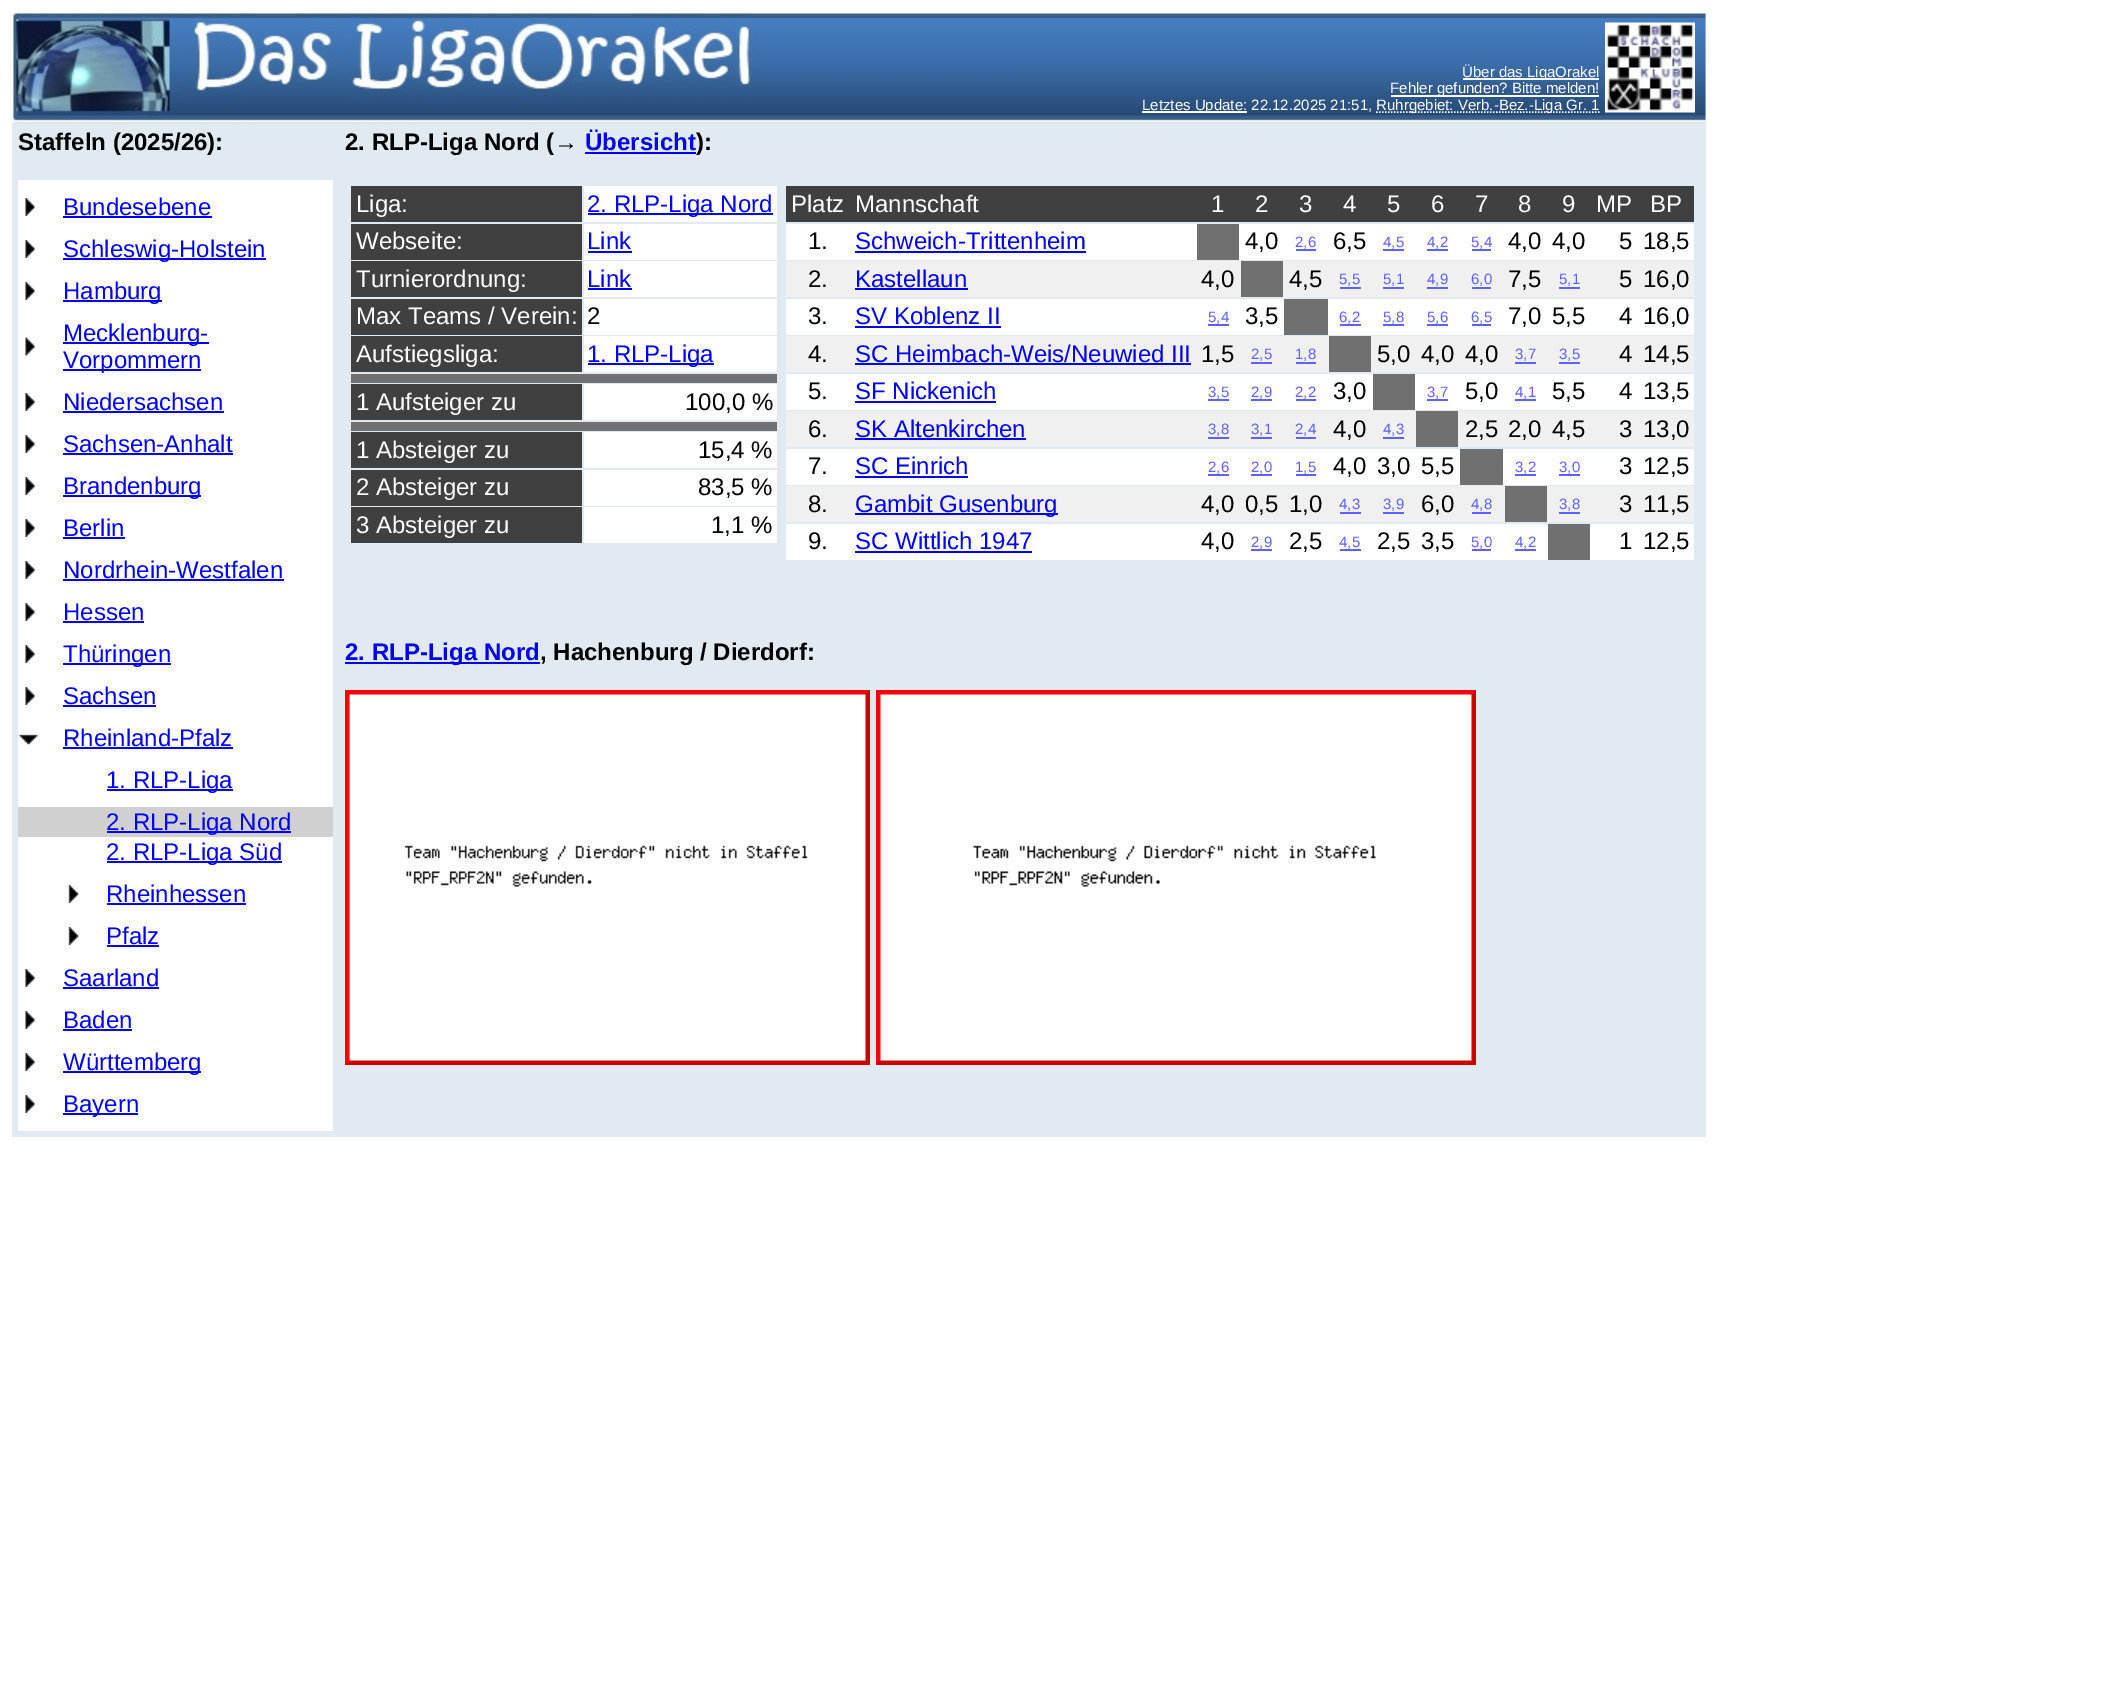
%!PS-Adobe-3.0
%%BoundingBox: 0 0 2115 1698
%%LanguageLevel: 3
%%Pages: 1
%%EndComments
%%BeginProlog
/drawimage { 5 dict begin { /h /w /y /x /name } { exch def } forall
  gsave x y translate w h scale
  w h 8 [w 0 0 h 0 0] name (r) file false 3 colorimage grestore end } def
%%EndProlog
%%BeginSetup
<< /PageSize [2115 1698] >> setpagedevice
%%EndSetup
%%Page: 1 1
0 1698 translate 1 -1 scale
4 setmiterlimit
1 setgray
0 0 2115 1698 rectfill
0.878 0.918 0.941 setrgbcolor
12 12 1694 1125 rectfill
(images/1.raw) 12 12 1694 111 drawimage
1 setgray
1463 78 136 2 rectfill
1391 95 208 2 rectfill
1142 111 105 2 rectfill
1.5 setlinewidth
[1.5 1.5] 0 setdash
newpath 1376 112 moveto 1599.5 112 lineto stroke
(images/2.raw) 1605 22 90 91 drawimage
18 180 315 12 rectfill
18 192 315 30 rectfill
(images/3.raw) 25 198 10 18 drawimage
0 0 0.933 setrgbcolor
63 216 149 2 rectfill
1 setgray
18 222 315 12 rectfill
18 234 315 30 rectfill
(images/3.raw) 25 240 10 18 drawimage
0 0 0.933 setrgbcolor
63 258 203 2 rectfill
1 setgray
18 264 315 12 rectfill
18 276 315 30 rectfill
(images/3.raw) 25 282 10 18 drawimage
0 0 0.933 setrgbcolor
63 300 99 2 rectfill
1 setgray
18 306 315 12 rectfill
18 318 315 57 rectfill
(images/4.raw) 25 337 10 19 drawimage
0 0 0.933 setrgbcolor
63 342 146 2 rectfill
63 369 138 2 rectfill
1 setgray
18 375 315 12 rectfill
18 387 315 30 rectfill
(images/3.raw) 25 393 10 18 drawimage
0 0 0.933 setrgbcolor
63 411 161 2 rectfill
1 setgray
18 417 315 12 rectfill
18 429 315 30 rectfill
(images/3.raw) 25 435 10 18 drawimage
0 0 0.933 setrgbcolor
63 453 170 2 rectfill
1 setgray
18 459 315 12 rectfill
18 471 315 30 rectfill
(images/3.raw) 25 477 10 18 drawimage
0 0 0.933 setrgbcolor
63 495 138 2 rectfill
1 setgray
18 501 315 12 rectfill
18 513 315 30 rectfill
(images/3.raw) 25 519 10 18 drawimage
0 0 0.933 setrgbcolor
63 537 62 2 rectfill
1 setgray
18 543 315 12 rectfill
18 555 315 30 rectfill
(images/3.raw) 25 561 10 18 drawimage
0 0 0.933 setrgbcolor
63 579 221 2 rectfill
1 setgray
18 585 315 12 rectfill
18 597 315 30 rectfill
(images/3.raw) 25 603 10 18 drawimage
0 0 0.933 setrgbcolor
63 621 81 2 rectfill
1 setgray
18 627 315 12 rectfill
18 639 315 30 rectfill
(images/3.raw) 25 645 10 18 drawimage
0 0 0.933 setrgbcolor
63 663 108 2 rectfill
1 setgray
18 669 315 12 rectfill
18 681 315 30 rectfill
(images/3.raw) 25 687 10 18 drawimage
0 0 0.933 setrgbcolor
63 705 93 2 rectfill
1 setgray
18 711 315 12 rectfill
18 723 315 30 rectfill
(images/5.raw) 19 734 19 11 drawimage
0 0 0.933 setrgbcolor
63 747 170 2 rectfill
1 setgray
18 753 315 12 rectfill
18 765 315 30 rectfill
0 0 0.933 setrgbcolor
107 789 126 2 rectfill
1 setgray
18 795 315 12 rectfill
0.816 setgray
18 807 315 30 rectfill
0 0 0.933 setrgbcolor
107 831 184 2 rectfill
1 setgray
18 837 315 30 rectfill
0 0 0.933 setrgbcolor
107 861 175 2 rectfill
1 setgray
18 867 315 12 rectfill
18 879 315 30 rectfill
(images/6.raw) 68 885 11 18 drawimage
0 0 0.933 setrgbcolor
107 903 139 2 rectfill
1 setgray
18 909 315 12 rectfill
18 921 315 30 rectfill
(images/6.raw) 68 927 11 18 drawimage
0 0 0.933 setrgbcolor
107 945 52 2 rectfill
1 setgray
18 951 315 12 rectfill
18 963 315 30 rectfill
(images/3.raw) 25 969 10 18 drawimage
0 0 0.933 setrgbcolor
63 987 96 2 rectfill
1 setgray
18 993 315 12 rectfill
18 1005 315 30 rectfill
(images/3.raw) 25 1011 10 18 drawimage
0 0 0.933 setrgbcolor
63 1029 69 2 rectfill
1 setgray
18 1035 315 12 rectfill
18 1047 315 30 rectfill
(images/3.raw) 25 1053 10 18 drawimage
0 0 0.933 setrgbcolor
63 1071 138 2 rectfill
1 setgray
18 1077 315 12 rectfill
18 1089 315 30 rectfill
(images/3.raw) 25 1095 10 18 drawimage
0 0 0.933 setrgbcolor
63 1113 75 2 rectfill
1 setgray
18 1119 315 12 rectfill
0 0 0.933 setrgbcolor
585 152 111 2 rectfill
0.251 setgray
351 186 231 36 rectfill
1 setgray
584 186 193 36 rectfill
0 0 0.933 setrgbcolor
588 213 185 2 rectfill
0.251 setgray
351 224 231 36 rectfill
1 setgray
584 224 193 36 rectfill
0 0 0.933 setrgbcolor
588 251 44 2 rectfill
0.251 setgray
351 261 231 36 rectfill
1 setgray
584 261 193 36 rectfill
0 0 0.933 setrgbcolor
588 288 44 2 rectfill
0.251 setgray
351 299 231 36 rectfill
1 setgray
584 299 193 36 rectfill
0.251 setgray
351 336 231 36 rectfill
1 setgray
584 336 193 36 rectfill
0 0 0.933 setrgbcolor
588 363 126 2 rectfill
0.439 setgray
351 374 426 9 rectfill
0.251 setgray
351 384 231 36 rectfill
1 setgray
584 384 193 36 rectfill
0.439 setgray
351 422 426 9 rectfill
0.251 setgray
351 432 231 36 rectfill
1 setgray
584 432 193 36 rectfill
0.251 setgray
351 470 231 36 rectfill
1 setgray
584 470 193 36 rectfill
0.251 setgray
351 507 231 36 rectfill
1 setgray
584 507 193 36 rectfill
0.251 setgray
786 186 908 36 rectfill
1 setgray
786 224 908 36 rectfill
0 0 0.933 setrgbcolor
855 251 231 2 rectfill
0.439 setgray
1197 224 42 36 rectfill
0.376 0.376 1 setrgbcolor
1296 249 20 2 rectfill
1383 249 21 2 rectfill
1427 249 21 2 rectfill
1472 249 19 2 rectfill
0.941 setgray
786 261 908 36 rectfill
0 0 0.933 setrgbcolor
855 288 113 2 rectfill
0.439 setgray
1241 261 42 36 rectfill
0.376 0.376 1 setrgbcolor
1340 287 21 2 rectfill
1383 287 21 2 rectfill
1427 287 21 2 rectfill
1472 287 19 2 rectfill
1559 287 21 2 rectfill
1 setgray
786 299 908 36 rectfill
0 0 0.933 setrgbcolor
855 326 146 2 rectfill
0.376 0.376 1 setrgbcolor
1208 324 21 2 rectfill
0.439 setgray
1284 299 44 36 rectfill
0.376 0.376 1 setrgbcolor
1340 324 21 2 rectfill
1383 324 21 2 rectfill
1427 324 21 2 rectfill
1472 324 19 2 rectfill
0.941 setgray
786 336 908 36 rectfill
0 0 0.933 setrgbcolor
855 363 336 2 rectfill
0.376 0.376 1 setrgbcolor
1251 362 21 2 rectfill
1296 362 20 2 rectfill
0.439 setgray
1329 336 42 36 rectfill
0.376 0.376 1 setrgbcolor
1515 362 21 2 rectfill
1559 362 21 2 rectfill
1 setgray
786 374 908 36 rectfill
0 0 0.933 setrgbcolor
855 401 141 2 rectfill
0.376 0.376 1 setrgbcolor
1208 399 21 2 rectfill
1251 399 21 2 rectfill
1296 399 20 2 rectfill
0.439 setgray
1373 374 42 36 rectfill
0.376 0.376 1 setrgbcolor
1427 399 21 2 rectfill
1515 399 21 2 rectfill
0.941 setgray
786 411 908 36 rectfill
0 0 0.933 setrgbcolor
855 438 171 2 rectfill
0.376 0.376 1 setrgbcolor
1208 437 21 2 rectfill
1251 437 21 2 rectfill
1296 437 20 2 rectfill
1383 437 21 2 rectfill
0.439 setgray
1416 411 42 36 rectfill
1 setgray
786 449 908 36 rectfill
0 0 0.933 setrgbcolor
855 476 113 2 rectfill
0.376 0.376 1 setrgbcolor
1208 474 21 2 rectfill
1251 474 21 2 rectfill
1296 474 20 2 rectfill
0.439 setgray
1460 449 43 36 rectfill
0.376 0.376 1 setrgbcolor
1515 474 21 2 rectfill
1559 474 21 2 rectfill
0.941 setgray
786 486 908 36 rectfill
0 0 0.933 setrgbcolor
855 513 203 2 rectfill
0.376 0.376 1 setrgbcolor
1340 512 21 2 rectfill
1383 512 21 2 rectfill
1472 512 19 2 rectfill
0.439 setgray
1505 486 42 36 rectfill
0.376 0.376 1 setrgbcolor
1559 512 21 2 rectfill
1 setgray
786 524 908 36 rectfill
0 0 0.933 setrgbcolor
855 551 177 2 rectfill
0.376 0.376 1 setrgbcolor
1251 549 21 2 rectfill
1340 549 21 2 rectfill
1472 549 19 2 rectfill
1515 549 21 2 rectfill
0.439 setgray
1548 524 42 36 rectfill
0 0 0.933 setrgbcolor
345 662 195 2 rectfill
(images/7.raw) 345 690 525 375 drawimage
(images/8.raw) 876 690 600 375 drawimage
/LiberationSans-Regular [15 0 0 -15 0 0] selectfont
1 setgray
1462 77 moveto (Über das LigaOrakel) show
1390 93 moveto (Fehler gefunden? Bitte melden!) show
1142 110 moveto (Letztes Update: 22.12.2025 21:51,) show
1376 110 moveto (Ruhrgebiet: Verb.-Bez.-Liga Gr. 1) show
/LiberationSans-Bold [24 0 0 -24 0 0] selectfont
0 setgray
18 150 moveto (Staffeln \(2025/26\):) show
/LiberationSans-Regular [24 0 0 -24 0 0] selectfont
0 0 0.933 setrgbcolor
63 215 moveto (Bundesebene) show
63 257 moveto (Schleswig-Holstein) show
63 299 moveto (Hamburg) show
63 341 moveto (Mecklenburg-) show
63 368 moveto (Vorpommern) show
63 410 moveto (Niedersachsen) show
63 452 moveto (Sachsen-Anhalt) show
63 494 moveto (Brandenburg) show
63 536 moveto (Berlin) show
63 578 moveto (Nordrhein-Westfalen) show
63 620 moveto (Hessen) show
63 662 moveto (Thüringen) show
63 704 moveto (Sachsen) show
63 746 moveto (Rheinland-Pfalz) show
106 788 moveto (1. RLP-Liga) show
106 830 moveto (2. RLP-Liga Nord) show
106 860 moveto (2. RLP-Liga Süd) show
106 902 moveto (Rheinhessen) show
106 944 moveto (Pfalz) show
63 986 moveto (Saarland) show
63 1028 moveto (Baden) show
63 1070 moveto (Württemberg) show
63 1112 moveto (Bayern) show
/LiberationSans-Bold [24 0 0 -24 0 0] selectfont
0 setgray
345 150 moveto (2. RLP-Liga Nord \(→) show
0 0 0.933 setrgbcolor
585 150 moveto (Übersicht) show
0 setgray
696 150 moveto (\):) show
/LiberationSans-Regular [24 0 0 -24 0 0] selectfont
1 setgray
356 212 moveto (Liga:) show
0 0 0.933 setrgbcolor
587 212 moveto (2. RLP-Liga Nord) show
1 setgray
356 249 moveto (Webseite:) show
0 0 0.933 setrgbcolor
587 249 moveto (Link) show
1 setgray
356 287 moveto (Turnierordnung:) show
0 0 0.933 setrgbcolor
587 287 moveto (Link) show
1 setgray
356 324 moveto (Max Teams / Verein:) show
0 setgray
587 324 moveto (2) show
1 setgray
356 362 moveto (Aufstiegsliga:) show
0 0 0.933 setrgbcolor
587 362 moveto (1. RLP-Liga) show
1 setgray
356 410 moveto (1 Aufsteiger zu) show
0 setgray
685 410 moveto (100,0 %) show
1 setgray
356 458 moveto (1 Absteiger zu) show
0 setgray
698 458 moveto (15,4 %) show
1 setgray
356 495 moveto (2 Absteiger zu) show
0 setgray
698 495 moveto (83,5 %) show
1 setgray
356 533 moveto (3 Absteiger zu) show
0 setgray
711 533 moveto (1,1 %) show
1 setgray
791 212 moveto (Platz) show
855 212 moveto (Mannschaft) show
1211 212 moveto (1) show
1255 212 moveto (2) show
1299 212 moveto (3) show
1343 212 moveto (4) show
1387 212 moveto (5) show
1431 212 moveto (6) show
1475 212 moveto (7) show
1518 212 moveto (8) show
1562 212 moveto (9) show
1596 212 moveto (MP) show
1650 212 moveto (BP) show
0 setgray
808 249 moveto (1.) show
0 0 0.933 setrgbcolor
855 249 moveto (Schweich-Trittenheim) show
0 setgray
1245 249 moveto (4,0) show
/LiberationSans-Regular [15 0 0 -15 0 0] selectfont
0.376 0.376 1 setrgbcolor
1295 247 moveto (2,6) show
/LiberationSans-Regular [24 0 0 -24 0 0] selectfont
0 setgray
1333 249 moveto (6,5) show
/LiberationSans-Regular [15 0 0 -15 0 0] selectfont
0.376 0.376 1 setrgbcolor
1383 247 moveto (4,5) show
1427 247 moveto (4,2) show
1471 247 moveto (5,4) show
/LiberationSans-Regular [24 0 0 -24 0 0] selectfont
0 setgray
1508 249 moveto (4,0) show
1552 249 moveto (4,0) show
1619 249 moveto (5) show
1643 249 moveto (18,5) show
808 287 moveto (2.) show
0 0 0.933 setrgbcolor
855 287 moveto (Kastellaun) show
0 setgray
1201 287 moveto (4,0) show
1289 287 moveto (4,5) show
/LiberationSans-Regular [15 0 0 -15 0 0] selectfont
0.376 0.376 1 setrgbcolor
1339 284 moveto (5,5) show
1383 284 moveto (5,1) show
1427 284 moveto (4,9) show
1471 284 moveto (6,0) show
/LiberationSans-Regular [24 0 0 -24 0 0] selectfont
0 setgray
1508 287 moveto (7,5) show
/LiberationSans-Regular [15 0 0 -15 0 0] selectfont
0.376 0.376 1 setrgbcolor
1559 284 moveto (5,1) show
/LiberationSans-Regular [24 0 0 -24 0 0] selectfont
0 setgray
1619 287 moveto (5) show
1643 287 moveto (16,0) show
808 324 moveto (3.) show
0 0 0.933 setrgbcolor
855 324 moveto (SV Koblenz II) show
/LiberationSans-Regular [15 0 0 -15 0 0] selectfont
0.376 0.376 1 setrgbcolor
1208 322 moveto (5,4) show
/LiberationSans-Regular [24 0 0 -24 0 0] selectfont
0 setgray
1245 324 moveto (3,5) show
/LiberationSans-Regular [15 0 0 -15 0 0] selectfont
0.376 0.376 1 setrgbcolor
1339 322 moveto (6,2) show
1383 322 moveto (5,8) show
1427 322 moveto (5,6) show
1471 322 moveto (6,5) show
/LiberationSans-Regular [24 0 0 -24 0 0] selectfont
0 setgray
1508 324 moveto (7,0) show
1552 324 moveto (5,5) show
1619 324 moveto (4) show
1643 324 moveto (16,0) show
808 362 moveto (4.) show
0 0 0.933 setrgbcolor
855 362 moveto (SC Heimbach-Weis/Neuwied III) show
0 setgray
1201 362 moveto (1,5) show
/LiberationSans-Regular [15 0 0 -15 0 0] selectfont
0.376 0.376 1 setrgbcolor
1251 359 moveto (2,5) show
1295 359 moveto (1,8) show
/LiberationSans-Regular [24 0 0 -24 0 0] selectfont
0 setgray
1377 362 moveto (5,0) show
1421 362 moveto (4,0) show
1465 362 moveto (4,0) show
/LiberationSans-Regular [15 0 0 -15 0 0] selectfont
0.376 0.376 1 setrgbcolor
1515 359 moveto (3,7) show
1559 359 moveto (3,5) show
/LiberationSans-Regular [24 0 0 -24 0 0] selectfont
0 setgray
1619 362 moveto (4) show
1643 362 moveto (14,5) show
808 399 moveto (5.) show
0 0 0.933 setrgbcolor
855 399 moveto (SF Nickenich) show
/LiberationSans-Regular [15 0 0 -15 0 0] selectfont
0.376 0.376 1 setrgbcolor
1208 397 moveto (3,5) show
1251 397 moveto (2,9) show
1295 397 moveto (2,2) show
/LiberationSans-Regular [24 0 0 -24 0 0] selectfont
0 setgray
1333 399 moveto (3,0) show
/LiberationSans-Regular [15 0 0 -15 0 0] selectfont
0.376 0.376 1 setrgbcolor
1427 397 moveto (3,7) show
/LiberationSans-Regular [24 0 0 -24 0 0] selectfont
0 setgray
1465 399 moveto (5,0) show
/LiberationSans-Regular [15 0 0 -15 0 0] selectfont
0.376 0.376 1 setrgbcolor
1515 397 moveto (4,1) show
/LiberationSans-Regular [24 0 0 -24 0 0] selectfont
0 setgray
1552 399 moveto (5,5) show
1619 399 moveto (4) show
1643 399 moveto (13,5) show
808 437 moveto (6.) show
0 0 0.933 setrgbcolor
855 437 moveto (SK Altenkirchen) show
/LiberationSans-Regular [15 0 0 -15 0 0] selectfont
0.376 0.376 1 setrgbcolor
1208 434 moveto (3,8) show
1251 434 moveto (3,1) show
1295 434 moveto (2,4) show
/LiberationSans-Regular [24 0 0 -24 0 0] selectfont
0 setgray
1333 437 moveto (4,0) show
/LiberationSans-Regular [15 0 0 -15 0 0] selectfont
0.376 0.376 1 setrgbcolor
1383 434 moveto (4,3) show
/LiberationSans-Regular [24 0 0 -24 0 0] selectfont
0 setgray
1465 437 moveto (2,5) show
1508 437 moveto (2,0) show
1552 437 moveto (4,5) show
1619 437 moveto (3) show
1643 437 moveto (13,0) show
808 474 moveto (7.) show
0 0 0.933 setrgbcolor
855 474 moveto (SC Einrich) show
/LiberationSans-Regular [15 0 0 -15 0 0] selectfont
0.376 0.376 1 setrgbcolor
1208 472 moveto (2,6) show
1251 472 moveto (2,0) show
1295 472 moveto (1,5) show
/LiberationSans-Regular [24 0 0 -24 0 0] selectfont
0 setgray
1333 474 moveto (4,0) show
1377 474 moveto (3,0) show
1421 474 moveto (5,5) show
/LiberationSans-Regular [15 0 0 -15 0 0] selectfont
0.376 0.376 1 setrgbcolor
1515 472 moveto (3,2) show
1559 472 moveto (3,0) show
/LiberationSans-Regular [24 0 0 -24 0 0] selectfont
0 setgray
1619 474 moveto (3) show
1643 474 moveto (12,5) show
808 512 moveto (8.) show
0 0 0.933 setrgbcolor
855 512 moveto (Gambit Gusenburg) show
0 setgray
1201 512 moveto (4,0) show
1245 512 moveto (0,5) show
1289 512 moveto (1,0) show
/LiberationSans-Regular [15 0 0 -15 0 0] selectfont
0.376 0.376 1 setrgbcolor
1339 509 moveto (4,3) show
1383 509 moveto (3,9) show
/LiberationSans-Regular [24 0 0 -24 0 0] selectfont
0 setgray
1421 512 moveto (6,0) show
/LiberationSans-Regular [15 0 0 -15 0 0] selectfont
0.376 0.376 1 setrgbcolor
1471 509 moveto (4,8) show
1559 509 moveto (3,8) show
/LiberationSans-Regular [24 0 0 -24 0 0] selectfont
0 setgray
1619 512 moveto (3) show
1643 512 moveto (11,5) show
808 549 moveto (9.) show
0 0 0.933 setrgbcolor
855 549 moveto (SC Wittlich 1947) show
0 setgray
1201 549 moveto (4,0) show
/LiberationSans-Regular [15 0 0 -15 0 0] selectfont
0.376 0.376 1 setrgbcolor
1251 547 moveto (2,9) show
/LiberationSans-Regular [24 0 0 -24 0 0] selectfont
0 setgray
1289 549 moveto (2,5) show
/LiberationSans-Regular [15 0 0 -15 0 0] selectfont
0.376 0.376 1 setrgbcolor
1339 547 moveto (4,5) show
/LiberationSans-Regular [24 0 0 -24 0 0] selectfont
0 setgray
1377 549 moveto (2,5) show
1421 549 moveto (3,5) show
/LiberationSans-Regular [15 0 0 -15 0 0] selectfont
0.376 0.376 1 setrgbcolor
1471 547 moveto (5,0) show
1515 547 moveto (4,2) show
/LiberationSans-Regular [24 0 0 -24 0 0] selectfont
0 setgray
1619 549 moveto (1) show
1643 549 moveto (12,5) show
/LiberationSans-Bold [24 0 0 -24 0 0] selectfont
0 0 0.933 setrgbcolor
345 660 moveto (2. RLP-Liga Nord) show
0 setgray
540 660 moveto (, Hachenburg / Dierdorf:) show
showpage
%%EOF
